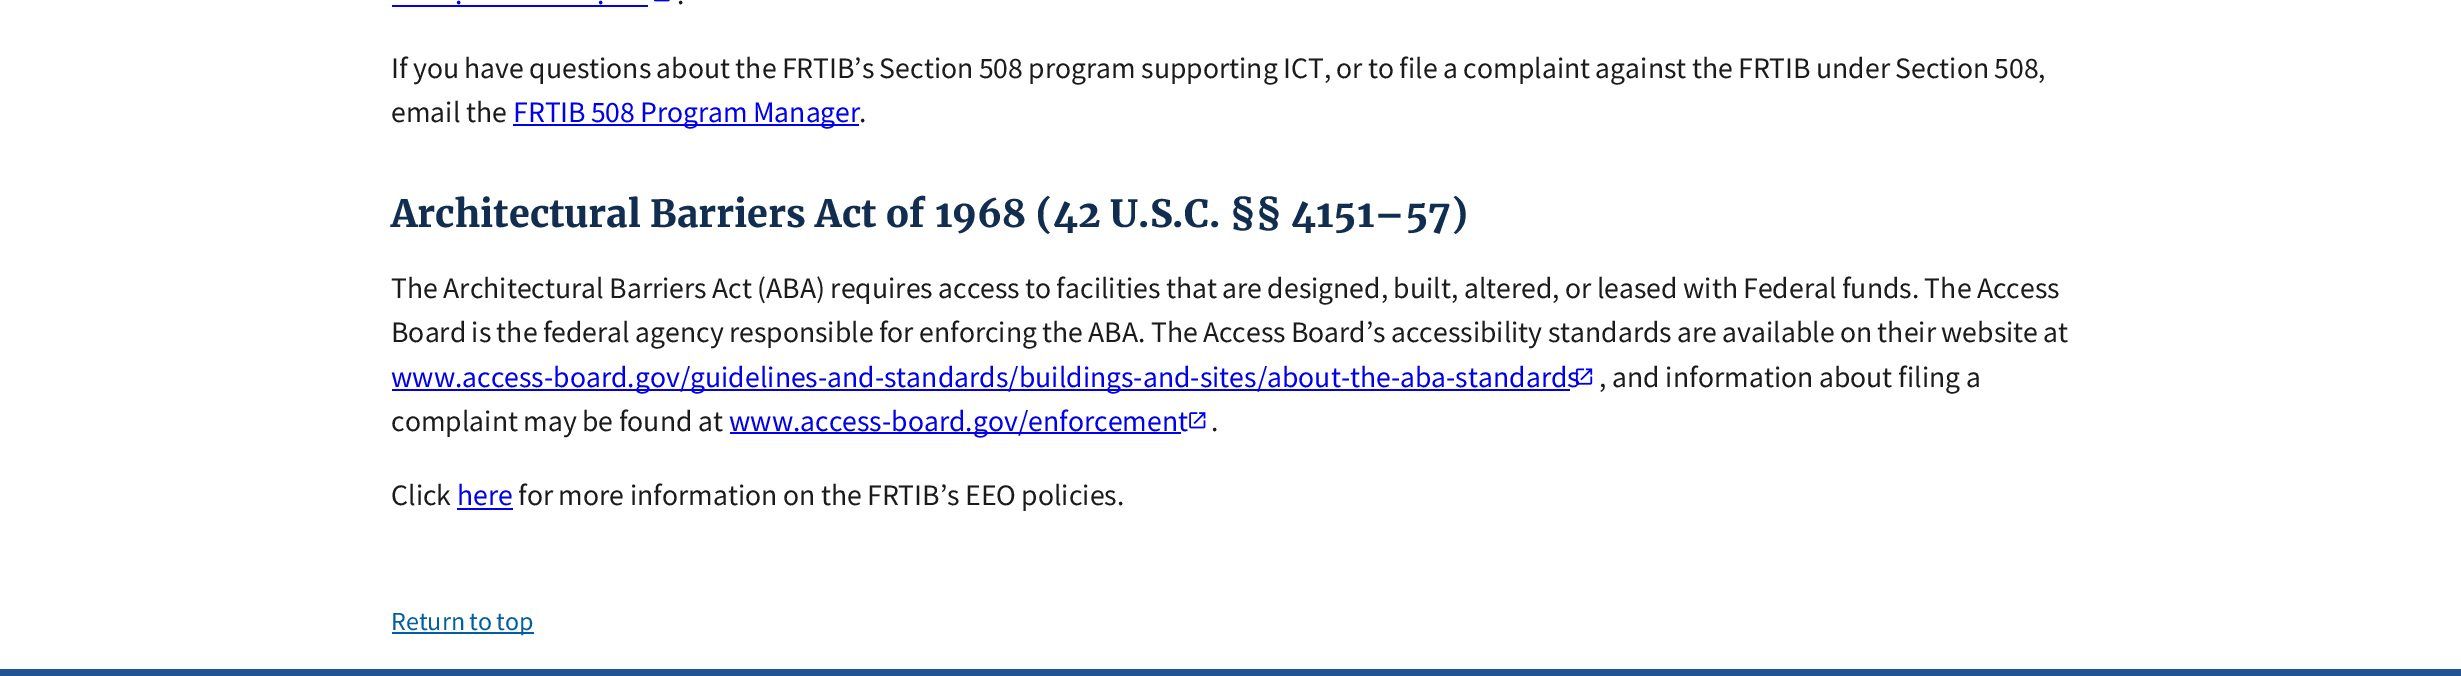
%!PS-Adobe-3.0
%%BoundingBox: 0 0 2461 676
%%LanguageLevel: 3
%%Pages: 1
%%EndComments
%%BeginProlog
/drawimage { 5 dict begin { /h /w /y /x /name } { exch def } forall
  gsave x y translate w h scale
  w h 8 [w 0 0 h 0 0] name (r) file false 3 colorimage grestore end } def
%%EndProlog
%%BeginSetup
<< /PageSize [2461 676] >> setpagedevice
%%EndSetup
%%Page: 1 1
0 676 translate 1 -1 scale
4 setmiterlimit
1 setgray
0 0 2461 676 rectfill
0 0 0.933 setrgbcolor
392 5 256 2 rectfill
(images/1.raw) 653 0 17 2 drawimage
513 124 346 2 rectfill
392 389 1178 2 rectfill
730 432 451 2 rectfill
(images/3.raw) 1189 412 17 17 drawimage
457 508 56 2 rectfill
0 0.369 0.635 setrgbcolor
392 632 142 2 rectfill
0.125 0.329 0.576 setrgbcolor
0 669 2461 7 rectfill
/SourceSansPro-Regular [29.68 0 0 -29.68 0 0] selectfont
0 0 0.933 setrgbcolor
455 4 moveto (.) show
597 4 moveto (.) show
0.106 setgray
677 4 moveto (.) show
391 78 moveto -0.6 0 32 (If you have questions about the FRTIB’s Section 508 program supporting ICT, or to file a complaint against the FRTIB under Section 508,) widthshow
391 122 moveto (email the) show
0 0 0.933 setrgbcolor
513 122 moveto -1 0 32 (FRTIB 508 Program Manager) widthshow
0.106 setgray
859 122 moveto (.) show
/Merriweather-Bold [37.5 0 0 -37.5 0 0] selectfont
0.067 0.18 0.318 setrgbcolor
391 227 moveto (Architectural Barriers Act of 1968 \(42 U.S.C. §§ 4151–57\)) show
/SourceSansPro-Regular [29.68 0 0 -29.68 0 0] selectfont
0.106 setgray
391 298 moveto -0.6 0 32 (The Architectural Barriers Act \(ABA\) requires access to facilities that are designed, built, altered, or leased with Federal funds. The Access) widthshow
391 342 moveto -0.7 0 32 (Board is the federal agency responsible for enforcing the ABA. The Access Board’s accessibility standards are available on their website at) widthshow
0 0 0.933 setrgbcolor
391 387 moveto (www.access-board.gov/guidelines-and-standards/buildings-and-sites/about-the-aba-standards) show
(images/2.raw) 1575 368 18 17 drawimage
0.106 setgray
1599 387 moveto -0.25 0 32 (, and information about filing a) widthshow
391 431 moveto -0.5 0 32 (complaint may be found at) widthshow
0 0 0.933 setrgbcolor
729 431 moveto (www.access-board.gov/enforcement) show
0.106 setgray
1211 431 moveto (.) show
391 505 moveto (Click) show
0 0 0.933 setrgbcolor
457 505 moveto (here) show
0.106 setgray
518 505 moveto -0.5 0 32 (for more information on the FRTIB’s EEO policies.) widthshow
/SourceSansPro-Regular [26 0 0 -26 0 0] selectfont
0 0.369 0.635 setrgbcolor
391 630 moveto -1 0 32 (Return to top) widthshow
showpage
%%EOF
